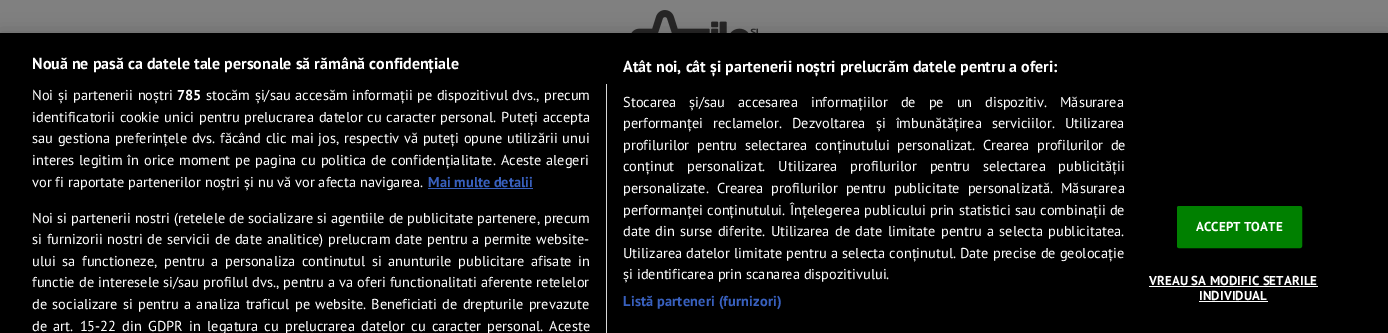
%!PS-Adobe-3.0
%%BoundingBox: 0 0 1388 333
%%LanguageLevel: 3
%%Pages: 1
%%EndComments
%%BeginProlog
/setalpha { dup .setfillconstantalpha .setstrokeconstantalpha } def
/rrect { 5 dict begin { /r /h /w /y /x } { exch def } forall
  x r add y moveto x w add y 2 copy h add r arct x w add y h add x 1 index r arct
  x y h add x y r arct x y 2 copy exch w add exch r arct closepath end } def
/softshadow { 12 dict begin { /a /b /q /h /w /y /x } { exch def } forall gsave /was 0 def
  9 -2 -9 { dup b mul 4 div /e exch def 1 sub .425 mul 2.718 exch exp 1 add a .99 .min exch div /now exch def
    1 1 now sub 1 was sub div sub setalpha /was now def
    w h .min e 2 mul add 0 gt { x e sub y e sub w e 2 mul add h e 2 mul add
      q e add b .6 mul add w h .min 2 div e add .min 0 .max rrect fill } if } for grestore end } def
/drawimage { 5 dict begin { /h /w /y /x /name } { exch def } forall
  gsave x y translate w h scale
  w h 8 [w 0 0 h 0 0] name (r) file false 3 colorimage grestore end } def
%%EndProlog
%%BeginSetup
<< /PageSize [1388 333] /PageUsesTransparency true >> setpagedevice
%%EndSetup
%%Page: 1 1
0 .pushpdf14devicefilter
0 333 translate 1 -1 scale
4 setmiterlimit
0.502 setgray
0 0 1388 333 rectfill
(images/1.raw) 631 10 127 23 drawimage
0 setgray
0 33 1388 300 0 9 0.2 softshadow
0 33 1388 300 rectfill
0.847 setgray
606 84 1 249 rectfill
0.22 0.376 0.745 setrgbcolor
428 188 105 1 rectfill
0 0.502 0 setrgbcolor
1177.5 206.5 124 41 1.5 rrect gsave fill grestore
stroke
1 setgray
1149 286 169 1 rectfill
1199 301 69 1 rectfill
/PTSans-Bold [16 0 0 -16 0 0] selectfont
32 69 moveto (Nouă ne pasă ca datele tale personale să rămână confidențiale) show
623 72 moveto (Atât noi, cât și partenerii noștri prelucrăm datele pentru a oferi:) show
/PTSans-Regular [14.4 0 0 -14.4 0 0] selectfont
623 107 moveto 9 0 32 (Stocarea și/sau accesarea informațiilor de pe un dispozitiv. Măsurarea) widthshow
623 128 moveto 6.25 0 32 (performanței reclamelor. Dezvoltarea și îmbunătățirea serviciilor. Utilizarea) widthshow
623 150 moveto 3.5 0 32 (profilurilor pentru selectarea conținutului personalizat. Crearea profilurilor de) widthshow
623 171 moveto 9 0 32 (conținut personalizat. Utilizarea profilurilor pentru selectarea publicității) widthshow
623 193 moveto 4 0 32 (personalizate. Crearea profilurilor pentru publicitate personalizată. Măsurarea) widthshow
623 215 moveto 0.5 0 32 (performanței conținutului. Înțelegerea publicului prin statistici sau combinații de) widthshow
623 236 moveto 1.5 0 32 (date din surse diferite. Utilizarea de date limitate pentru a selecta publicitatea.) widthshow
623 258 moveto 0.25 0 32 (Utilizarea datelor limitate pentru a selecta conținutul. Date precise de geolocație) widthshow
623 279 moveto (și identificarea prin scanarea dispozitivului.) show
/PTSans-Bold [14.4 0 0 -14.4 0 0] selectfont
0.22 0.376 0.745 setrgbcolor
623 306 moveto 0.15 0 (Listă parteneri \(furnizori\)) ashow
/PTSans-Regular [14.4 0 0 -14.4 0 0] selectfont
1 setgray
32 100 moveto 1 0 32 (Noi și partenerii noștri) widthshow
/PTSans-Bold [14.4 0 0 -14.4 0 0] selectfont
177 100 moveto (785) show
/PTSans-Regular [14.4 0 0 -14.4 0 0] selectfont
206 100 moveto 0.75 0 32 (stocăm și/sau accesăm informații pe dispozitivul dvs., precum) widthshow
32 122 moveto 0.9 0 32 (identificatorii cookie unici pentru prelucrarea datelor cu caracter personal. Puteți accepta) widthshow
32 143 moveto 0.75 0 32 (sau gestiona preferințele dvs. făcând clic mai jos, respectiv vă puteți opune utilizării unui) widthshow
32 165 moveto 1 0 32 (interes legitim în orice moment pe pagina cu politica de confidențialitate. Aceste alegeri) widthshow
32 187 moveto (vor fi raportate partenerilor noștri și nu vă vor afecta navigarea.) show
/PTSans-Bold [14.4 0 0 -14.4 0 0] selectfont
0.22 0.376 0.745 setrgbcolor
428 187 moveto (Mai multe detalii) show
/PTSans-Regular [14.4 0 0 -14.4 0 0] selectfont
1 setgray
32 223 moveto (Noi si partenerii nostri \(retelele de socializare si agentiile de publicitate partenere, precum) show
32 244 moveto 0.9 0 32 (si furnizorii nostri de servicii de date analitice\) prelucram date pentru a permite website-) widthshow
32 266 moveto 2.75 0 32 (ului sa functioneze, pentru a personaliza continutul si anunturile publicitare afisate in) widthshow
32 287 moveto 0.25 0 32 (functie de interesele si/sau profilul dvs., pentru a va oferi functionalitati aferente retelelor) widthshow
32 309 moveto 1.5 0 32 (de socializare si pentru a analiza traficul pe website. Beneficiati de drepturile prevazute) widthshow
32 331 moveto 2.4 0 32 (de art. 15-22 din GDPR in legatura cu prelucrarea datelor cu caracter personal. Aceste) widthshow
/PTSans-Bold [13 0 0 -13 0 0] selectfont
1196 231 moveto 0.1 0 (ACCEPT TOATE) ashow
1149 285 moveto 0.1 0 (VREAU SA MODIFIC SETARILE) ashow
1199 300 moveto 0.1 0 (INDIVIDUAL) ashow
.poppdf14devicefilter showpage
%%EOF
